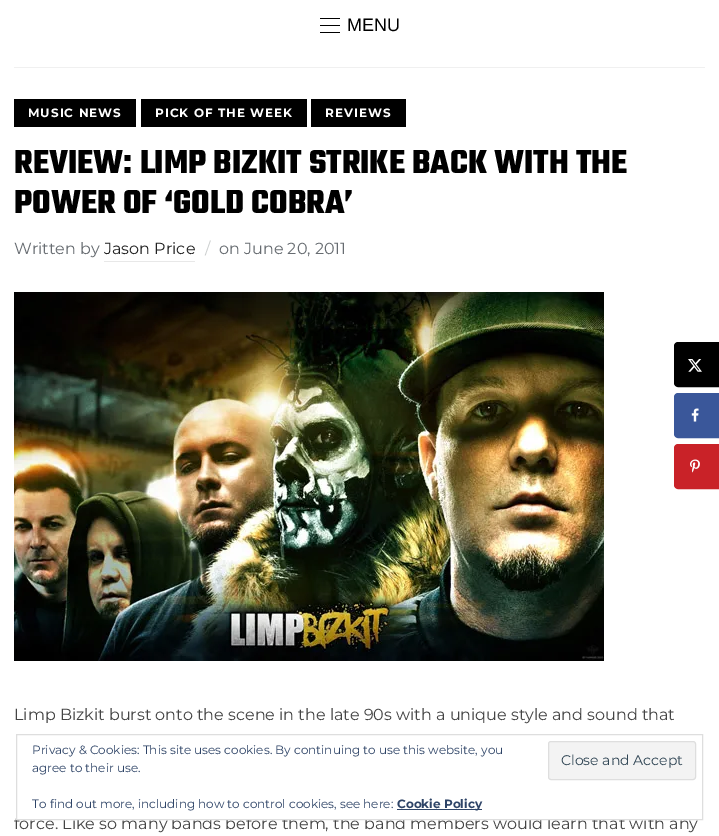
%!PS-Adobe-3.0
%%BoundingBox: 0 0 719 836
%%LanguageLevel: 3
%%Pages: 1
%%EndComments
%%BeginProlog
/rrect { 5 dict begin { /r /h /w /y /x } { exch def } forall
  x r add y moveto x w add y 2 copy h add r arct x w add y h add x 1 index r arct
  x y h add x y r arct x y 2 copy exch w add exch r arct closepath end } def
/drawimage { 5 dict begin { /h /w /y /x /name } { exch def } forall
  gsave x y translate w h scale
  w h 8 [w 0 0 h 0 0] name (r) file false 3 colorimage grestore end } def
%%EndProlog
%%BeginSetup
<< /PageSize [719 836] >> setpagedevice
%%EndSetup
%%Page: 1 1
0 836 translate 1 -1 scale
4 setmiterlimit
1 setgray
0 0 719 836 rectfill
0.941 setgray
14 67 691 1 rectfill
0 setgray
320 18 20 1 rectfill
320 25 20 1 rectfill
320 32 20 1 rectfill
14 99 122 28 rectfill
141 99 166 28 rectfill
311 99 95 28 rectfill
0.91 setgray
104 261 91 1 rectfill
(images/1.raw) 14 292 590 369 drawimage
0 setgray
newpath 678 343 moveto 718 343 lineto 718 386 lineto 678 386 lineto 676.5 386 675 384.5 675 383 curveto 675 346 lineto 675 344.5 676.5 343 678 343 curveto closepath gsave fill grestore
2 setlinewidth
stroke
(images/2.raw) 688 359 14 13 drawimage
0.227 0.341 0.604 setrgbcolor
newpath 678 394 moveto 718 394 lineto 718 437 lineto 678 437 lineto 676.5 437 675 435.5 675 434 curveto 675 397 lineto 675 395.5 676.5 394 678 394 curveto closepath gsave fill grestore
stroke
(images/3.raw) 691 408 8 14 drawimage
0.788 0.133 0.157 setrgbcolor
newpath 678 445 moveto 718 445 lineto 718 488 lineto 678 488 lineto 676.5 488 675 486.5 675 485 curveto 675 448 lineto 675 446.5 676.5 445 678 445 curveto closepath gsave fill grestore
stroke
(images/4.raw) 690 459 10 14 drawimage
/LiberationSans-Regular [18 0 0 -18 0 0] selectfont
0 setgray
347 31 moveto (MENU) show
/Montserrat-Bold [12 0 0 -12 0 0] selectfont
1 setgray
28 117 moveto 1 0 (MUSIC NEWS) ashow
155 117 moveto 1 0 (PICK OF THE WEEK) ashow
325 117 moveto 1 0 (REVIEWS) ashow
/Teko-Light [36 0 0 -36 0 0] selectfont
0 setgray
14 173 moveto (REVIEW: LIMP BIZKIT STRIKE BACK WITH THE) show
14 213 moveto (POWER OF ‘GOLD COBRA’) show
/Montserrat-Regular [16 0 0 -16 0 0] selectfont
0.404 0.424 0.443 setrgbcolor
14 254 moveto (Written by) show
0.133 setgray
104 254 moveto (Jason Price) show
0.8 0.812 0.812 setrgbcolor
205 254 moveto (/) show
0.404 0.424 0.443 setrgbcolor
219 254 moveto (on June 20, 2011) show
0.267 setgray
14 720 moveto (Limp Bizkit burst onto the scene in the late 90s with a unique style and sound that) show
14 829 moveto (force. Like so many bands before them, the band members would learn that with any) show
1 setgray
17 817 641 2 rectfill
0.871 setgray
1 setlinewidth
16.5 734.5 686 85 rectstroke
/Montserrat-Regular [12 0 0 -12 0 0] selectfont
0.18 0.267 0.404 setrgbcolor
32 754 moveto (Privacy & Cookies: This site uses cookies. By continuing to use this website, you) show
32 772 moveto (agree to their use.) show
0.953 setgray
548.5 741.5 147 38 2.5 rrect gsave fill grestore
0.871 setgray
stroke
/Montserrat-Regular [14 0 0 -14 0 0] selectfont
0.18 0.267 0.325 setrgbcolor
561 765 moveto (Close and Accept) show
/Montserrat-Regular [12 0 0 -12 0 0] selectfont
0.18 0.267 0.404 setrgbcolor
32 808 moveto (To find out more, including how to control cookies, see here:) show
397 809 85 1 rectfill
/Montserrat-Bold [12 0 0 -12 0 0] selectfont
397 808 moveto (Cookie Policy) show
showpage
%%EOF
